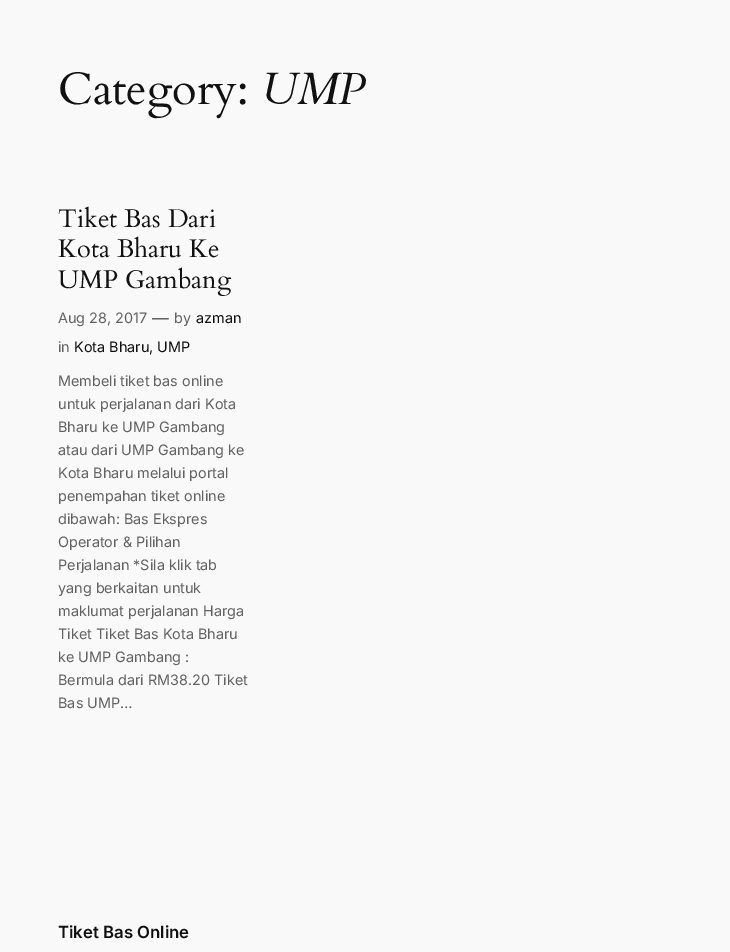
%!PS-Adobe-3.0
%%BoundingBox: 0 0 730 952
%%LanguageLevel: 3
%%Pages: 1
%%EndComments
%%BeginProlog
%%EndProlog
%%BeginSetup
<< /PageSize [730 952] >> setpagedevice
%%EndSetup
%%Page: 1 1
0 952 translate 1 -1 scale
4 setmiterlimit
0.976 setgray
0 0 730 952 rectfill
/Cardo-Regular [45.25 0 0 -45.25 0 0] selectfont
0.067 setgray
58 104 moveto (Category:) show
/Cardo-Italic [45.25 0 0 -45.25 0 0] selectfont
261 104 moveto (UMP) show
/Cardo-Regular [25.5 0 0 -25.5 0 0] selectfont
58 227 moveto (Tiket Bas Dari) show
58 257 moveto (Kota Bharu Ke) show
58 288 moveto (UMP Gambang) show
/Inter-Regular [14.4 0 0 -14.4 0 0] selectfont
0.388 setgray
58 323 moveto (Aug 28, 2017) show
/Inter-Regular [16.75 0 0 -16.75 0 0] selectfont
152 324 moveto (—) show
/Inter-Regular [14.4 0 0 -14.4 0 0] selectfont
174 323 moveto (by) show
0.067 setgray
196 323 moveto (azman) show
0.388 setgray
58 352 moveto (in) show
0.067 setgray
74 352 moveto (Kota Bharu, UMP) show
0.388 setgray
58 386 moveto (Membeli tiket bas online) show
58 409 moveto (untuk perjalanan dari Kota) show
58 432 moveto (Bharu ke UMP Gambang) show
58 455 moveto (atau dari UMP Gambang ke) show
58 478 moveto (Kota Bharu melalui portal) show
58 501 moveto (penempahan tiket online) show
58 524 moveto (dibawah: Bas Ekspres) show
58 547 moveto (Operator & Pilihan) show
58 570 moveto (Perjalanan *Sila klik tab) show
58 593 moveto (yang berkaitan untuk) show
58 616 moveto (maklumat perjalanan Harga) show
58 639 moveto (Tiket Tiket Bas Kota Bharu) show
58 662 moveto (ke UMP Gambang :) show
58 685 moveto (Bermula dari RM38.20 Tiket) show
58 708 moveto (Bas UMP…) show
/Inter-SemiBold [16.75 0 0 -16.75 0 0] selectfont
0.067 setgray
58 938 moveto (Tiket Bas Online) show
showpage
%%EOF
